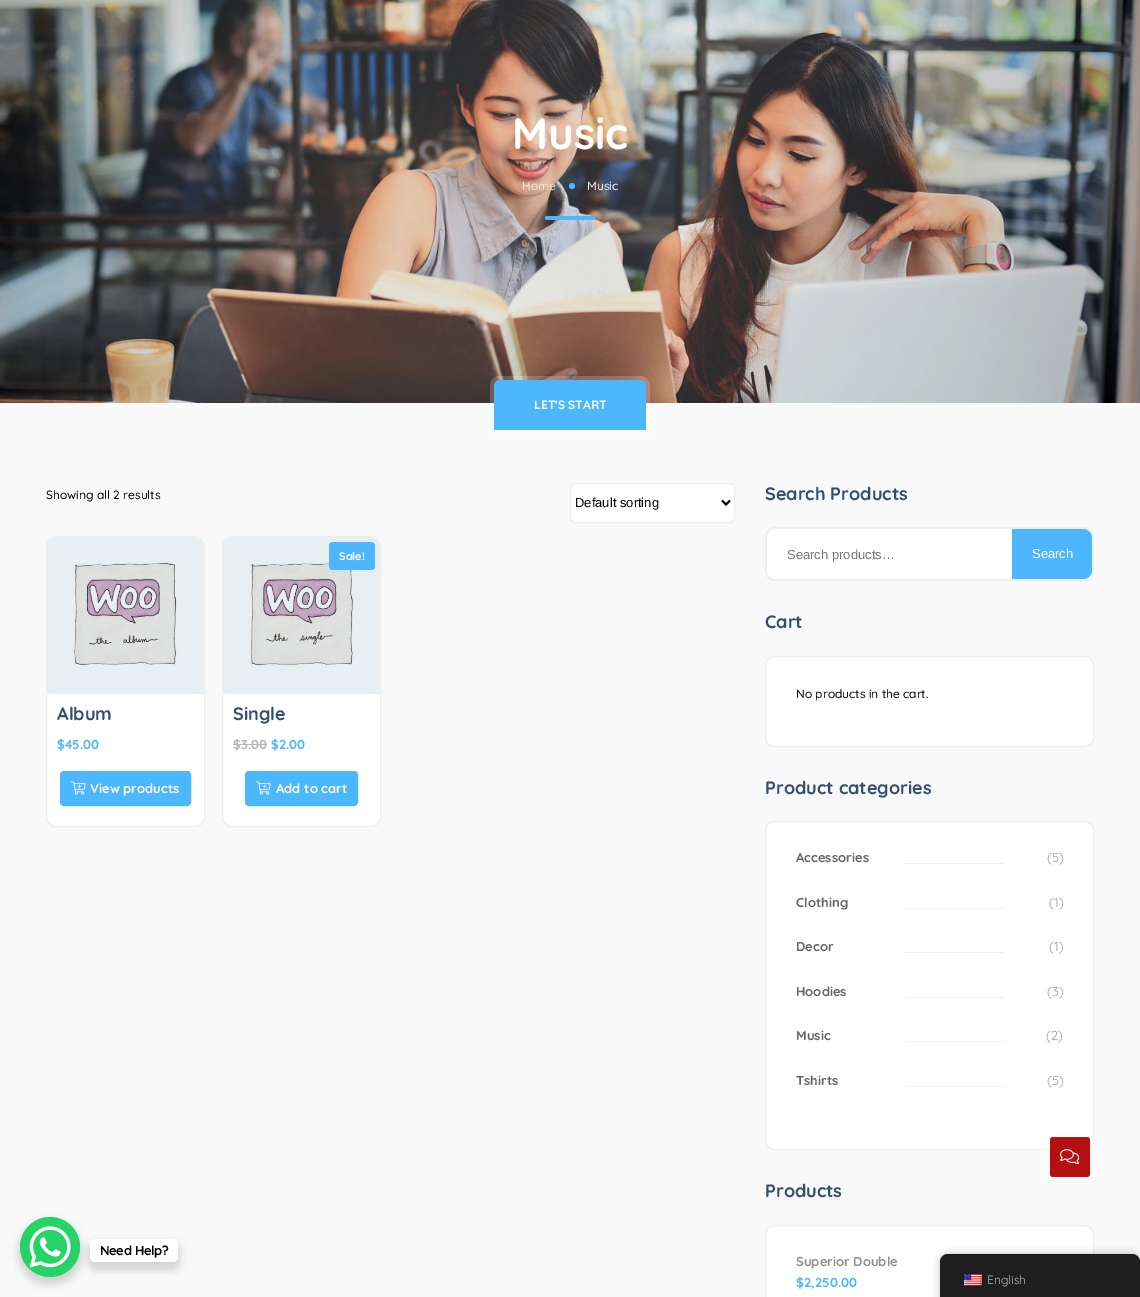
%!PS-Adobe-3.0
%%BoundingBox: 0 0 1140 1297
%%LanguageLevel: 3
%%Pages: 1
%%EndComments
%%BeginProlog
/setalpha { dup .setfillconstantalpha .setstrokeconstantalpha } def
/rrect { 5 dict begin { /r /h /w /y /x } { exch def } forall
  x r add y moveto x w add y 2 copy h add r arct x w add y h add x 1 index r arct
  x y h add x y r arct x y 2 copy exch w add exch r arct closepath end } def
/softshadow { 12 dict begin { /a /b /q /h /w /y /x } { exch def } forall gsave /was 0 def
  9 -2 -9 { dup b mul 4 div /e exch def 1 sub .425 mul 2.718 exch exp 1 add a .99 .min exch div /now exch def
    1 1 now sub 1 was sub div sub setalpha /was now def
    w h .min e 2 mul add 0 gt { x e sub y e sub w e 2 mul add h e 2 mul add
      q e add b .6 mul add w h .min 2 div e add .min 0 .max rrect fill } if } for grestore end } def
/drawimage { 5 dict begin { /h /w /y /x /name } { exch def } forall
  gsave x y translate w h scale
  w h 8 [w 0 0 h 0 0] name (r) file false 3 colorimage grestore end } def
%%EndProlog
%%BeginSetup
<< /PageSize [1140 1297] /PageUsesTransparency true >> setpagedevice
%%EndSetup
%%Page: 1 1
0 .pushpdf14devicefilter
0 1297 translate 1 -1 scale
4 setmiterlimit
1 setgray
0 0 1140 1297 rectfill
(images/1.raw) 0 0 1140 403 drawimage
0.302 0.718 0.996 setrgbcolor
newpath 572 186 3 0 360 arc closepath fill
545 216 50 4 2 rrect fill
0.976 setgray
0 403 1140 894 rectfill
0.2 setalpha
1 setgray
4 setlinewidth
newpath 500 378 moveto 640 378 lineto 644.5 378 648 381.5 648 386 curveto 648 432 lineto 492 432 lineto 492 386 lineto 492 381.5 495.5 378 500 378 curveto closepath stroke
1 setalpha
0.302 0.718 0.996 setrgbcolor
newpath 500 380 moveto 640 380 lineto 643.5 380 646 382.5 646 386 curveto 646 430 lineto 494 430 lineto 494 386 lineto 494 382.5 496.5 380 500 380 curveto closepath fill
1 setgray
570.5 483.5 164 39 5.5 rrect gsave fill grestore
0.933 setgray
1 setlinewidth
stroke
0 setgray
2 setlinewidth
newpath 722 500.5 moveto 726 504.5 lineto 730 500.5 lineto stroke
1 setgray
46.5 536.5 158 290 9.5 rrect gsave fill grestore
0.933 setgray
1 setlinewidth
stroke
(images/2.raw) 47 537 157 157 drawimage
0.302 0.718 0.996 setrgbcolor
60.5 771.5 130 34 3.5 rrect gsave fill grestore
stroke
(images/3.raw) 71 781 15 14 drawimage
1 setgray
222.5 536.5 158 290 9.5 rrect gsave fill grestore
0.933 setgray
stroke
(images/4.raw) 223 537 157 157 drawimage
0.302 0.718 0.996 setrgbcolor
329 542 46 28 4 rrect fill
0.722 setgray
233 744 34 1 rectfill
0.302 0.718 0.996 setrgbcolor
245.5 771.5 112 34 3.5 rrect gsave fill grestore
stroke
(images/3.raw) 256 781 15 14 drawimage
1 setgray
765.5 527.5 328 53 9.5 rrect gsave fill grestore
0.933 setgray
stroke
766.5 528.5 326 51 9.5 rrect stroke
1 setgray
newpath 776 529 moveto 1043 529 lineto 1043 579 lineto 776 579 lineto 771 579 767 575 767 570 curveto 767 538 lineto 767 533 771 529 776 529 curveto closepath fill
0.302 0.718 0.996 setrgbcolor
newpath 1012 529 moveto 1083 529 lineto 1088 529 1092 533 1092 538 curveto 1092 570 lineto 1092 575 1088 579 1083 579 curveto 1012 579 lineto closepath fill
1 setgray
765.5 656.5 328 90 9.5 rrect gsave fill grestore
0.933 setgray
stroke
1 setgray
765.5 821.5 328 328 9.5 rrect gsave fill grestore
0.933 setgray
stroke
905 863 100 1 rectfill
905 908 100 1 rectfill
905 952 100 1 rectfill
905 997 100 1 rectfill
905 1041 100 1 rectfill
905 1086 100 1 rectfill
1 setgray
765.5 1225.5 328 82 9.5 rrect gsave fill grestore
0.933 setgray
stroke
0.2 setalpha
1 setgray
7 setlinewidth
1046.5 1133.5 47 47 6.5 rrect stroke
1 setalpha
0.714 0.059 0.059 setrgbcolor
1050 1137 40 40 3 rrect fill
(images/5.raw) 1060 1149 20 16 drawimage
0 setgray
18 1221 64 64 32 4 0.15 softshadow
0.145 0.827 0.4 setrgbcolor
newpath 50 1247 30 0 360 arc closepath fill
(images/6.raw) 29 1226 42 42 drawimage
0 setgray
88 1243 92 27 7 4 0.15 softshadow
1 setgray
90 1239 88 23 5 rrect fill
0 setgray
940 1254 200 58 8 4 0.25 softshadow
0.118 setgray
newpath 948 1254 moveto 1132 1254 lineto 1136.5 1254 1140 1257.5 1140 1262 curveto 1140 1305 lineto 940 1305 lineto 940 1262 lineto 940 1257.5 943.5 1254 948 1254 curveto closepath fill
(images/7.raw) 964 1274 18 12 drawimage
/Quicksand-Bold [44 0 0 -44 0 0] selectfont
1 setgray
512 149 moveto (Music) show
/Quicksand-Medium [12 0 0 -12 0 0] selectfont
0.941 0.898 0.871 setrgbcolor
522 190 moveto (Home) show
1 setgray
587 190 moveto (Music) show
/Quicksand-Bold [12 0 0 -12 0 0] selectfont
534 409 moveto (LET'S START) show
/Quicksand-Medium [12 0 0 -12 0 0] selectfont
0 setgray
46 499 moveto (Showing all 2 results) show
/LiberationSans-Regular [13 0 0 -13 0 0] selectfont
575 507 moveto (Default sorting) show
/Quicksand-Bold [18 0 0 -18 0 0] selectfont
0.2 0.306 0.435 setrgbcolor
57 720 moveto (Album) show
/Quicksand-Bold [13 0 0 -13 0 0] selectfont
0.302 0.718 0.996 setrgbcolor
57 749 moveto ($45.00) show
1 setgray
90 793 moveto (View products) show
/Quicksand-Bold [11 0 0 -11 0 0] selectfont
339 560 moveto (Sale!) show
/Quicksand-Bold [18 0 0 -18 0 0] selectfont
0.2 0.306 0.435 setrgbcolor
233 720 moveto (Single) show
/Quicksand-Bold [13 0 0 -13 0 0] selectfont
0.722 setgray
233 749 moveto ($3.00) show
0.302 0.718 0.996 setrgbcolor
271 749 moveto ($2.00) show
1 setgray
276 793 moveto (Add to cart) show
/Quicksand-Bold [18 0 0 -18 0 0] selectfont
0.2 0.306 0.435 setrgbcolor
765 500 moveto (Search Products) show
/LiberationSans-Regular [13 0 0 -13 0 0] selectfont
0.459 setgray
787 559 moveto (Search products…) show
1 setgray
1032 558 moveto (Search) show
/Quicksand-Bold [18 0 0 -18 0 0] selectfont
0.2 0.306 0.435 setrgbcolor
765 628 moveto (Cart) show
/Quicksand-Medium [12 0 0 -12 0 0] selectfont
0 setgray
796 698 moveto (No products in the cart.) show
/Quicksand-Bold [18 0 0 -18 0 0] selectfont
0.2 0.306 0.435 setrgbcolor
765 794 moveto (Product categories) show
/Quicksand-Bold [13 0 0 -13 0 0] selectfont
0.4 setgray
796 862 moveto (Accessories) show
/Quicksand-Light [13 0 0 -13 0 0] selectfont
0.6 setgray
1047 862 moveto (\(5\)) show
/Quicksand-Bold [13 0 0 -13 0 0] selectfont
0.4 setgray
796 907 moveto (Clothing) show
/Quicksand-Light [13 0 0 -13 0 0] selectfont
0.6 setgray
1049 907 moveto (\(1\)) show
/Quicksand-Bold [13 0 0 -13 0 0] selectfont
0.4 setgray
796 951 moveto (Decor) show
/Quicksand-Light [13 0 0 -13 0 0] selectfont
0.6 setgray
1049 951 moveto (\(1\)) show
/Quicksand-Bold [13 0 0 -13 0 0] selectfont
0.4 setgray
796 996 moveto (Hoodies) show
/Quicksand-Light [13 0 0 -13 0 0] selectfont
0.6 setgray
1047 996 moveto (\(3\)) show
/Quicksand-Bold [13 0 0 -13 0 0] selectfont
0.4 setgray
796 1040 moveto (Music) show
/Quicksand-Light [13 0 0 -13 0 0] selectfont
0.6 setgray
1046 1040 moveto (\(2\)) show
/Quicksand-Bold [13 0 0 -13 0 0] selectfont
0.4 setgray
796 1085 moveto (Tshirts) show
/Quicksand-Light [13 0 0 -13 0 0] selectfont
0.6 setgray
1047 1085 moveto (\(5\)) show
/Quicksand-Bold [18 0 0 -18 0 0] selectfont
0.2 0.306 0.435 setrgbcolor
765 1197 moveto (Products) show
/Quicksand-Bold [13 0 0 -13 0 0] selectfont
0.565 setgray
796 1266 moveto (Superior Double) show
0.302 0.718 0.996 setrgbcolor
796 1287 moveto ($2,250.00) show
0 setgray
100 1255 moveto -0.4 0 (Need Help?) ashow
/Quicksand-Light [12 0 0 -12 0 0] selectfont
0.722 setgray
987 1284 moveto (English) show
.poppdf14devicefilter showpage
%%EOF
